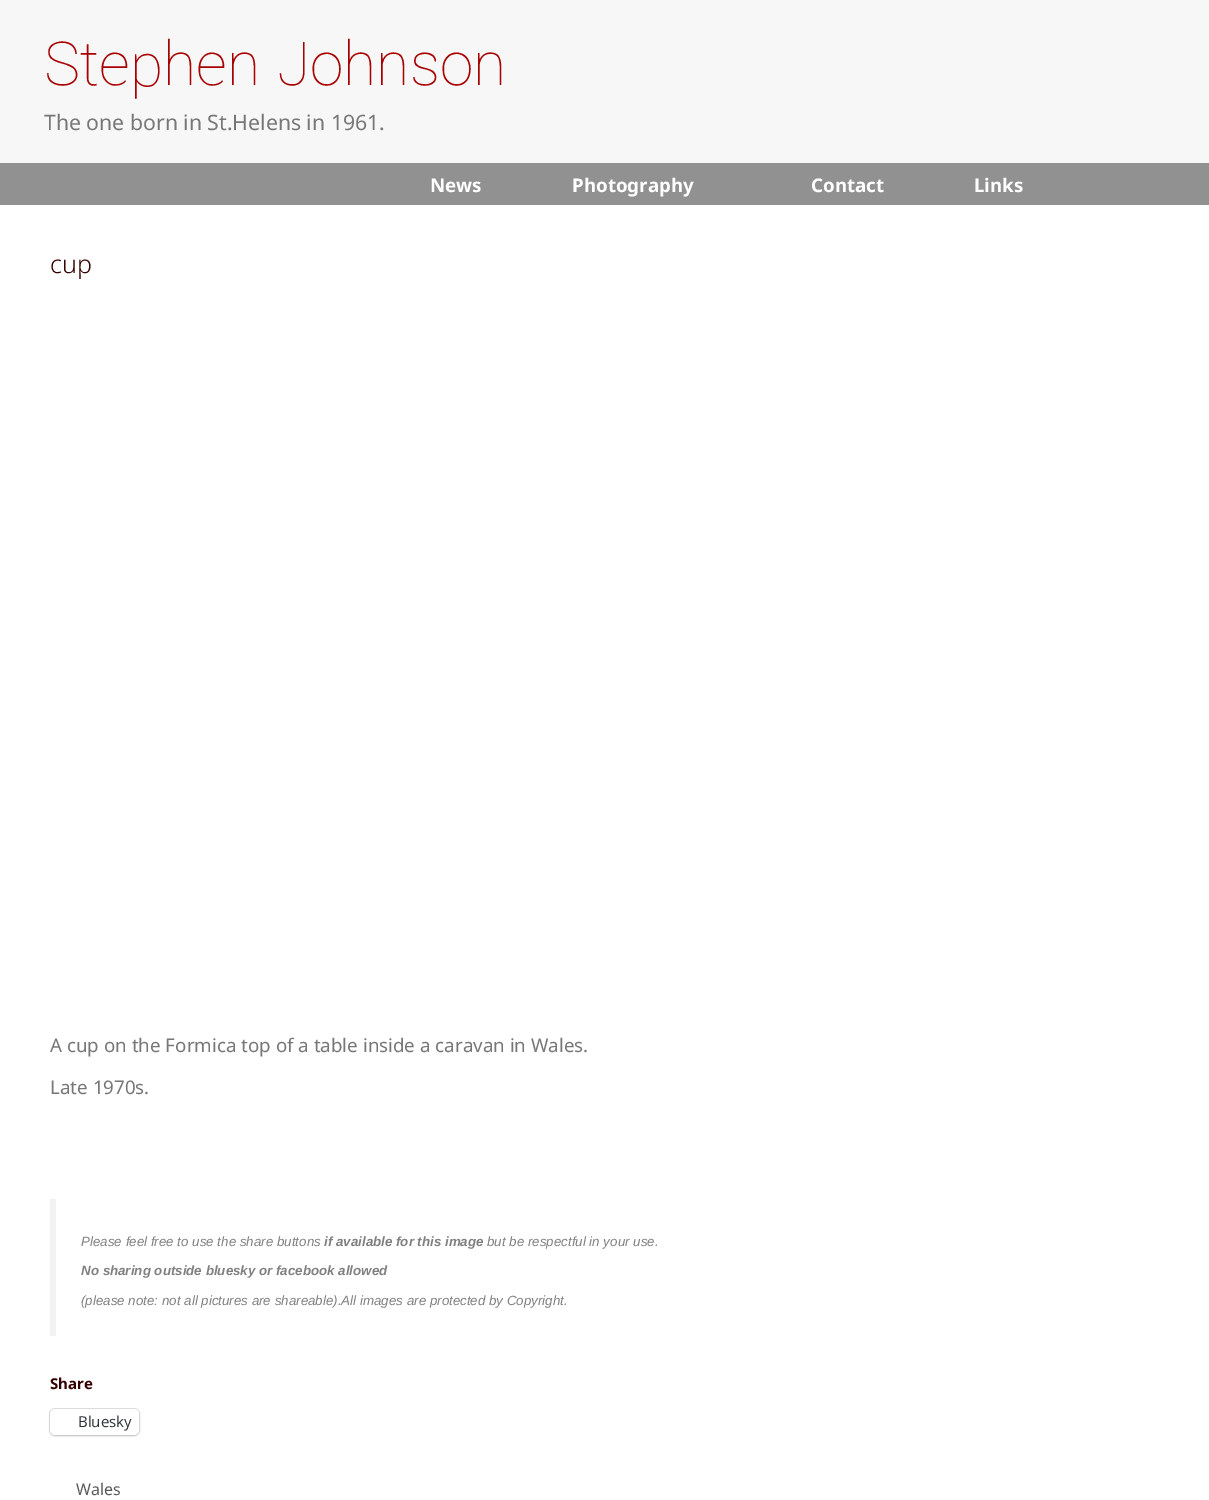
%!PS-Adobe-3.0
%%BoundingBox: 0 0 1209 1500
%%LanguageLevel: 3
%%Pages: 1
%%EndComments
%%BeginProlog
/setalpha { dup .setfillconstantalpha .setstrokeconstantalpha } def
/rrect { 5 dict begin { /r /h /w /y /x } { exch def } forall
  x r add y moveto x w add y 2 copy h add r arct x w add y h add x 1 index r arct
  x y h add x y r arct x y 2 copy exch w add exch r arct closepath end } def
/softshadow { 12 dict begin { /a /b /q /h /w /y /x } { exch def } forall gsave /was 0 def
  9 -2 -9 { dup b mul 4 div /e exch def 1 sub .425 mul 2.718 exch exp 1 add a .99 .min exch div /now exch def
    1 1 now sub 1 was sub div sub setalpha /was now def
    w h .min e 2 mul add 0 gt { x e sub y e sub w e 2 mul add h e 2 mul add
      q e add b .6 mul add w h .min 2 div e add .min 0 .max rrect fill } if } for grestore end } def
%%EndProlog
%%BeginSetup
<< /PageSize [1209 1500] /PageUsesTransparency true >> setpagedevice
%%EndSetup
%%Page: 1 1
0 .pushpdf14devicefilter
0 1500 translate 1 -1 scale
4 setmiterlimit
1 setgray
0 0 1209 1500 rectfill
0.969 setgray
0 0 1209 163 rectfill
0.569 setgray
0 163 1209 42 rectfill
0.949 setgray
50 1199 6 137 rectfill
0.878 setgray
49.5 1408.5 90 27 5.5 rrect stroke
0 setgray
50 1410 89 26 5 1 0.12 softshadow
1 setgray
50 1409 89 26 5 rrect fill
/Yantramanav-Thin [67.5 0 0 -67.5 0 0] selectfont
0.659 0 0 setrgbcolor
44 85 moveto (Stephen Johnson) show
/NotoSans-Regular [21.25 0 0 -21.25 0 0] selectfont
0.467 setgray
44 130 moveto (The one born in St.Helens in 1961.) show
/NotoSans-Bold [18.75 0 0 -18.75 0 0] selectfont
1 setgray
430 192 moveto (News) show
572 192 moveto (Photography) show
811 192 moveto (Contact) show
974 192 moveto (Links) show
/NotoSans-Light [25 0 0 -25 0 0] selectfont
0.208 0 0 setrgbcolor
50 273 moveto (cup) show
/NotoSans-Regular [18.75 0 0 -18.75 0 0] selectfont
0.467 setgray
50 1052 moveto (A cup on the Formica top of a table inside a caravan in Wales.) show
50 1094 moveto (Late 1970s.) show
/LiberationSans-Italic [13.35 0 0 -13.35 0 0] selectfont
0.502 setgray
81 1246 moveto (Please feel free to use the share buttons) show
/LiberationSans-BoldItalic [13.35 0 0 -13.35 0 0] selectfont
324 1246 moveto (if available for this image) show
/LiberationSans-Italic [13.35 0 0 -13.35 0 0] selectfont
487 1246 moveto (but be respectful in your use.) show
/LiberationSans-BoldItalic [13.35 0 0 -13.35 0 0] selectfont
81 1275 moveto (No sharing outside bluesky or facebook allowed) show
/LiberationSans-Italic [13.35 0 0 -13.35 0 0] selectfont
81 1305 moveto (\(please note: not all pictures are shareable\).All images are protected by Copyright.) show
/NotoSans-Bold [15 0 0 -15 0 0] selectfont
0.208 0 0 setrgbcolor
50 1389 moveto (Share) show
/OpenSans-Regular [15 0 0 -15 0 0] selectfont
0.173 0.2 0.22 setrgbcolor
78 1427 moveto (Bluesky) show
/NotoSans-Regular [16 0 0 -16 0 0] selectfont
0.349 setgray
76 1495 moveto (Wales) show
.poppdf14devicefilter showpage
%%EOF
